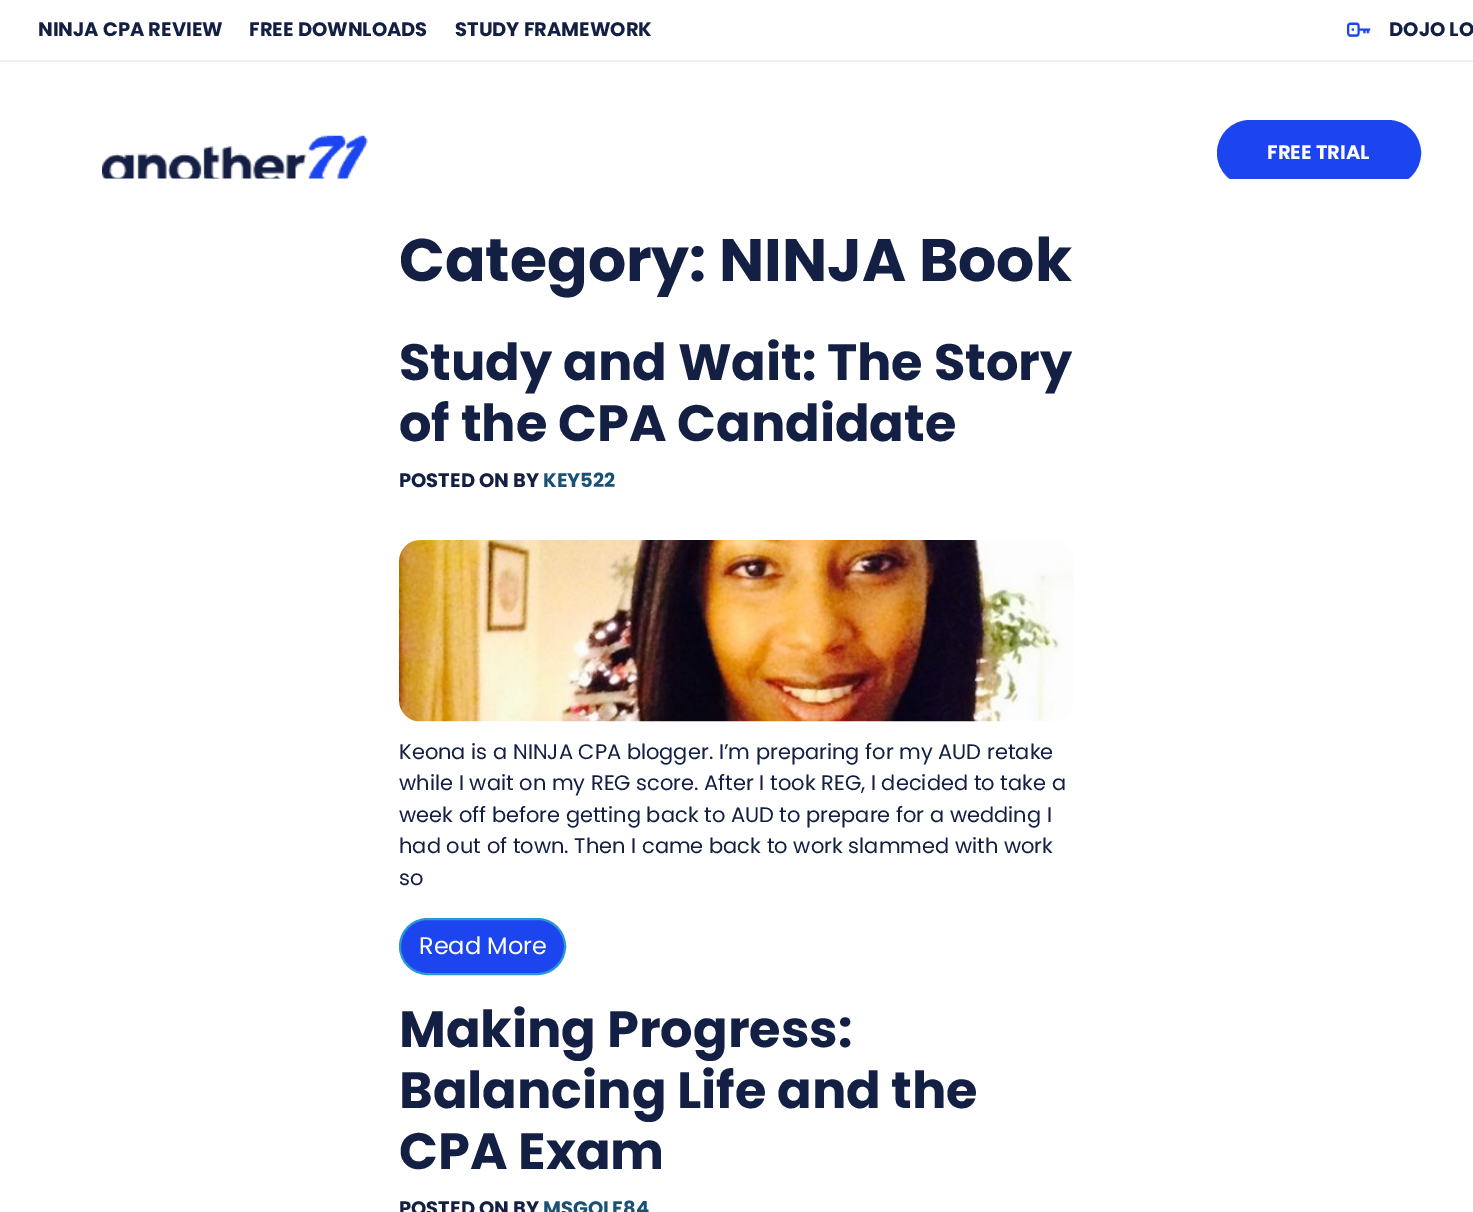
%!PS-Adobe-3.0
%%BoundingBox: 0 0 1473 1212
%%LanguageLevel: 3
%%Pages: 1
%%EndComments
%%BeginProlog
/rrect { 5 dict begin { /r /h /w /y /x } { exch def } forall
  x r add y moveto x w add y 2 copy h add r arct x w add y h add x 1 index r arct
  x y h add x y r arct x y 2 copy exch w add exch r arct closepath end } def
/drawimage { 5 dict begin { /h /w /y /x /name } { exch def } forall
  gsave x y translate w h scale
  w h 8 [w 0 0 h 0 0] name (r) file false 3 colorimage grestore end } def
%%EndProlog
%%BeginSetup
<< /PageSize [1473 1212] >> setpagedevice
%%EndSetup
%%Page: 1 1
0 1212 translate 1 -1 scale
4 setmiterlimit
1 setgray
0 0 1473 1212 rectfill
(images/1.raw) 1347 22 24 15 drawimage
0.933 0.937 0.961 setrgbcolor
0 60 1473 2 rectfill
(images/2.raw) 102 135 266 44 drawimage
gsave
0 62 1473 117 rectclip
0.114 0.271 0.937 setrgbcolor
1218.5 121.5 201 63 31.5 rrect gsave fill grestore
3 setlinewidth
stroke
grestore
(images/3.raw) 399 540 675 182 drawimage
0.114 0.271 0.937 setrgbcolor
400 919 165 55 27.5 rrect gsave fill grestore
0.161 0.592 0.831 setrgbcolor
2 setlinewidth
stroke
/Poppins-Bold [19.5 0 0 -19.5 0 0] selectfont
0.078 0.122 0.267 setrgbcolor
38 36 moveto (NINJA CPA REVIEW) show
249 36 moveto (FREE DOWNLOADS) show
455 36 moveto (STUDY FRAMEWORK) show
1389 36 moveto (DOJO LO) show
1 setgray
1267 159 moveto (FREE TRIAL) show
/Poppins-Bold [60 0 0 -60 0 0] selectfont
0.078 0.122 0.267 setrgbcolor
399 281 moveto (Category: NINJA Book) show
/Poppins-Bold [51 0 0 -51 0 0] selectfont
399 380 moveto (Study and Wait: The Story) show
399 441 moveto (of the CPA Candidate) show
/Poppins-Bold [19.5 0 0 -19.5 0 0] selectfont
399 487 moveto (POSTED ON BY) show
0.102 0.322 0.463 setrgbcolor
543 487 moveto (KEY522) show
/Poppins-Regular [21 0 0 -21 0 0] selectfont
0.078 0.122 0.267 setrgbcolor
399 759 moveto (Keona is a NINJA CPA blogger. I’m preparing for my AUD retake) show
399 790 moveto (while I wait on my REG score. After I took REG, I decided to take a) show
399 822 moveto (week off before getting back to AUD to prepare for a wedding I) show
399 853 moveto (had out of town. Then I came back to work slammed with work) show
399 885 moveto (so) show
/Poppins-Regular [24 0 0 -24 0 0] selectfont
1 setgray
419 954 moveto (Read More) show
/Poppins-Bold [51 0 0 -51 0 0] selectfont
0.078 0.122 0.267 setrgbcolor
399 1047 moveto (Making Progress:) show
399 1108 moveto (Balancing Life and the) show
399 1169 moveto (CPA Exam) show
/Poppins-Bold [19.5 0 0 -19.5 0 0] selectfont
399 1215 moveto (POSTED ON BY) show
0.102 0.322 0.463 setrgbcolor
543 1215 moveto (MSGOLF84) show
showpage
%%EOF
